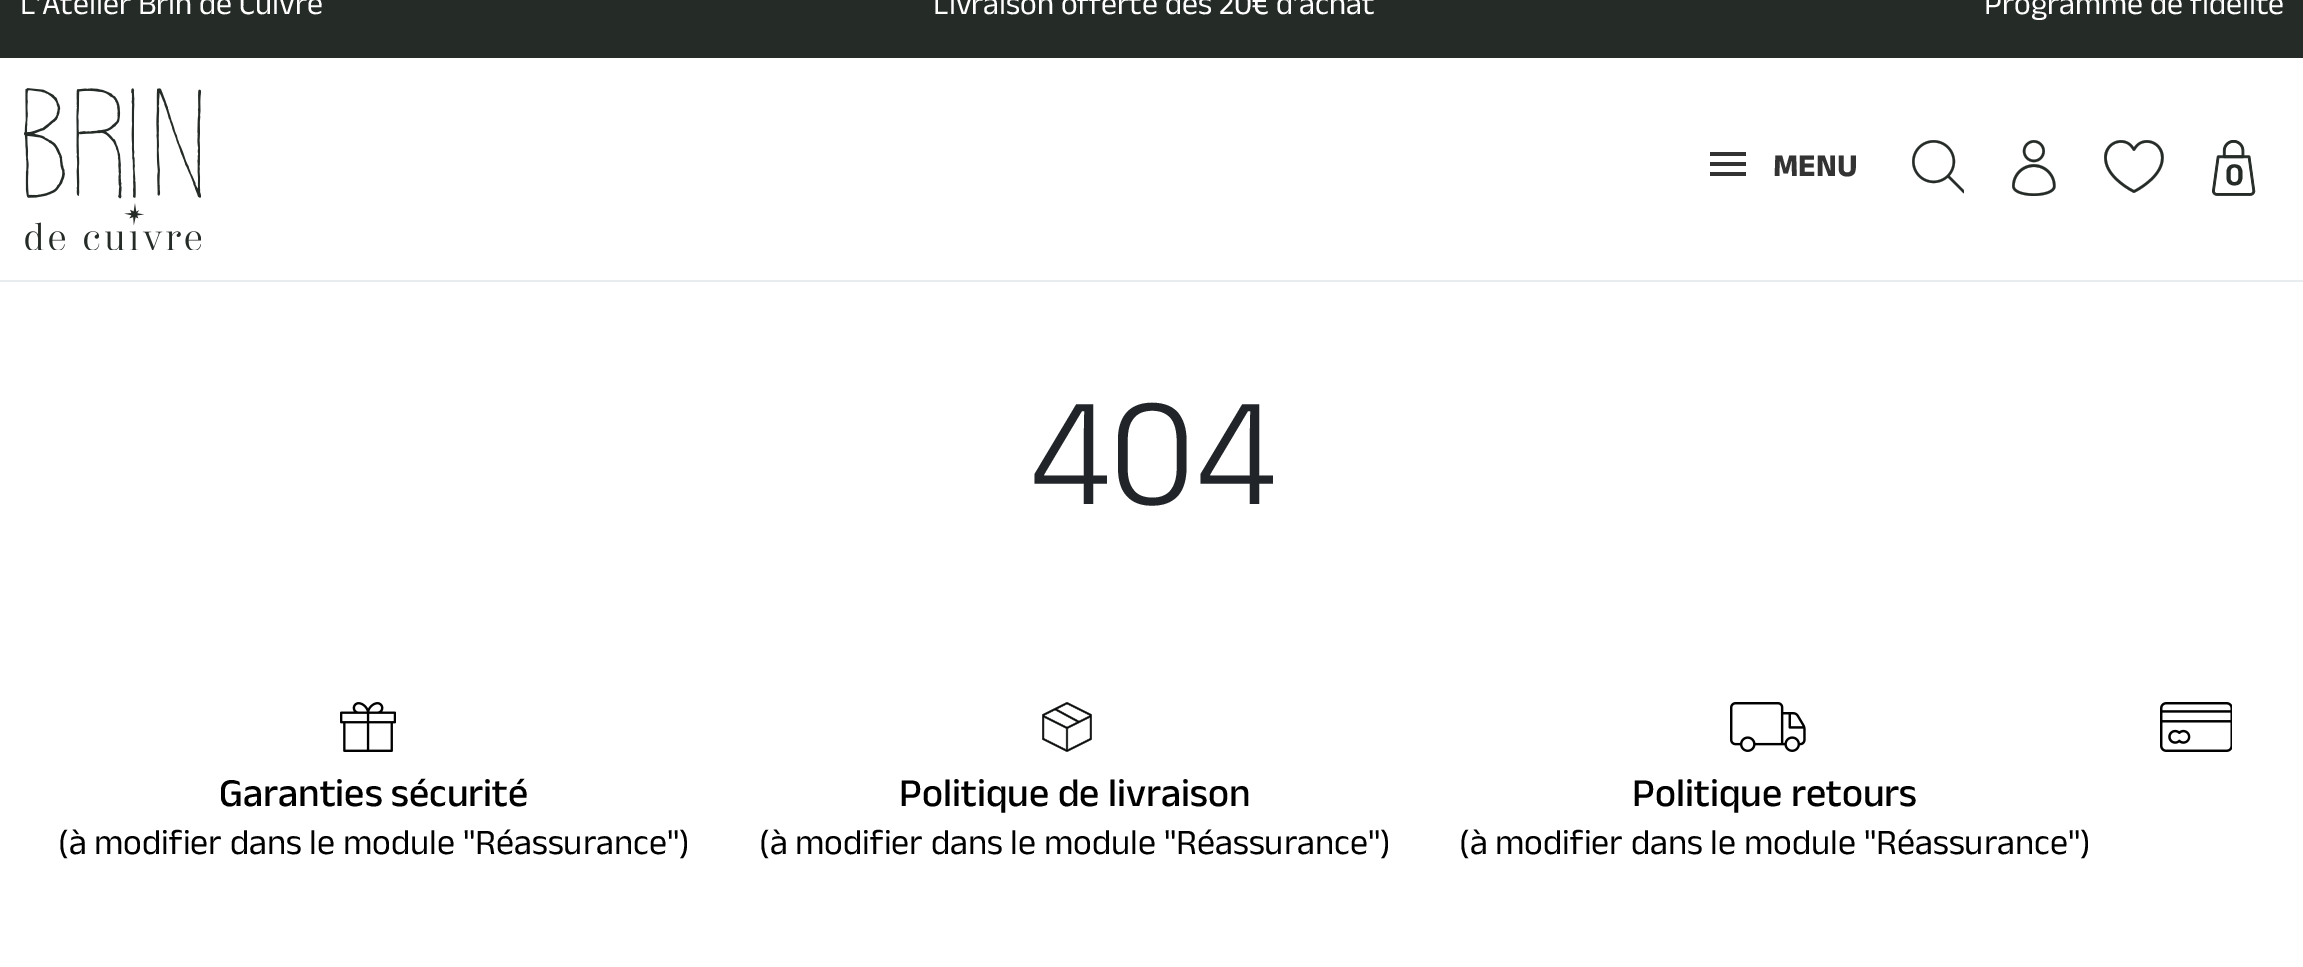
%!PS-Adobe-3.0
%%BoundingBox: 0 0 2303 967
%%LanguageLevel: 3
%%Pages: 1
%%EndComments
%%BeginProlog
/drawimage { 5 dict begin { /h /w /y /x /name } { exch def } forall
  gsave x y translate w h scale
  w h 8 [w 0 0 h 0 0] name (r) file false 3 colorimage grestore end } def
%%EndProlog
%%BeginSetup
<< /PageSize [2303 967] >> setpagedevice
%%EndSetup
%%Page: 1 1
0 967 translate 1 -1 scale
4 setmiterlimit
1 setgray
0 0 2303 967 rectfill
0.145 0.169 0.153 setrgbcolor
0 0 2303 58 rectfill
0.914 0.925 0.937 setrgbcolor
0 280 2303 2 rectfill
(images/1.raw) 24 88 177 162 drawimage
0.2 setgray
1710 152 36 4 rectfill
1710 162 36 4 rectfill
1710 172 36 4 rectfill
(images/2.raw) 1912 140 52 54 drawimage
(images/3.raw) 2012 140 44 56 drawimage
(images/4.raw) 2104 140 60 53 drawimage
(images/5.raw) 2212 140 44 56 drawimage
(images/6.raw) 2160 702 72 50 drawimage
(images/7.raw) 340 702 56 50 drawimage
(images/8.raw) 1042 702 50 50 drawimage
(images/9.raw) 1730 702 76 50 drawimage
/AnekDevanagari-Regular [32 0 0 -32 0 0] selectfont
1 setgray
20 14 moveto (L’Atelier Brin de Cuivre) show
933 14 moveto (Livraison offerte dès 20€ d’achat) show
1984 14 moveto (Programme de fidélité) show
/AnekDevanagari-Bold [32 0 0 -32 0 0] selectfont
0.2 setgray
1773 176 moveto (MENU) show
/AnekDevanagari-SemiBold [32 0 0 -32 0 0] selectfont
0.145 0.169 0.153 setrgbcolor
2225 185 moveto (0) show
/AnekDevanagari-Light [156 0 0 -156 0 0] selectfont
0.129 0.145 0.161 setrgbcolor
1030 504 moveto (404) show
/AnekDevanagari-Medium [40 0 0 -40 0 0] selectfont
0 setgray
219 806 moveto (Garanties sécurité) show
/AnekDevanagari-Regular [36 0 0 -36 0 0] selectfont
58 854 moveto (\(à modifier dans le module "Réassurance"\)) show
/AnekDevanagari-Medium [40 0 0 -40 0 0] selectfont
899 806 moveto (Politique de livraison) show
/AnekDevanagari-Regular [36 0 0 -36 0 0] selectfont
759 854 moveto (\(à modifier dans le module "Réassurance"\)) show
/AnekDevanagari-Medium [40 0 0 -40 0 0] selectfont
1632 806 moveto (Politique retours) show
/AnekDevanagari-Regular [36 0 0 -36 0 0] selectfont
1459 854 moveto (\(à modifier dans le module "Réassurance"\)) show
showpage
%%EOF
